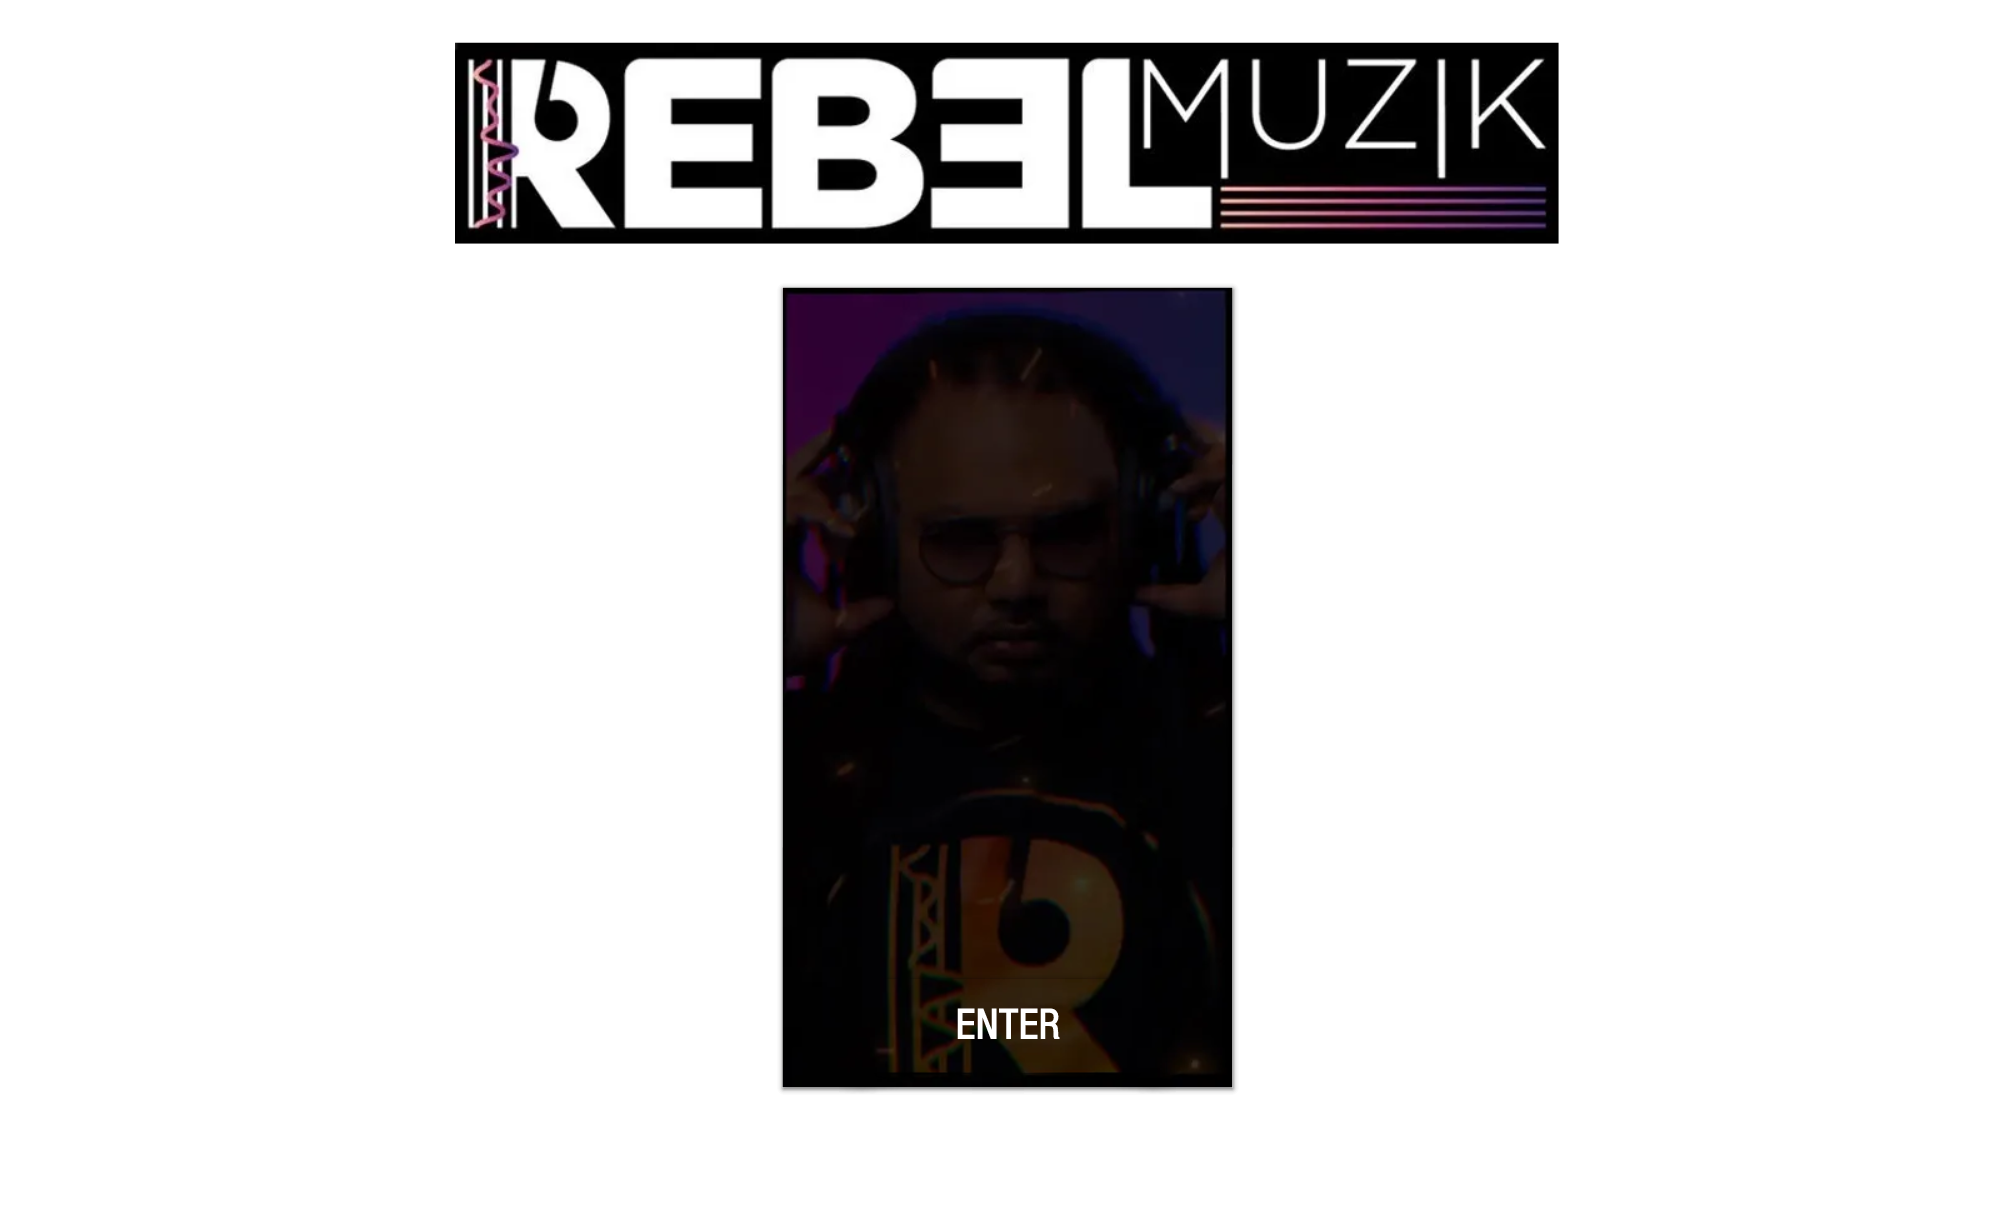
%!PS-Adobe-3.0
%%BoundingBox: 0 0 2013 1213
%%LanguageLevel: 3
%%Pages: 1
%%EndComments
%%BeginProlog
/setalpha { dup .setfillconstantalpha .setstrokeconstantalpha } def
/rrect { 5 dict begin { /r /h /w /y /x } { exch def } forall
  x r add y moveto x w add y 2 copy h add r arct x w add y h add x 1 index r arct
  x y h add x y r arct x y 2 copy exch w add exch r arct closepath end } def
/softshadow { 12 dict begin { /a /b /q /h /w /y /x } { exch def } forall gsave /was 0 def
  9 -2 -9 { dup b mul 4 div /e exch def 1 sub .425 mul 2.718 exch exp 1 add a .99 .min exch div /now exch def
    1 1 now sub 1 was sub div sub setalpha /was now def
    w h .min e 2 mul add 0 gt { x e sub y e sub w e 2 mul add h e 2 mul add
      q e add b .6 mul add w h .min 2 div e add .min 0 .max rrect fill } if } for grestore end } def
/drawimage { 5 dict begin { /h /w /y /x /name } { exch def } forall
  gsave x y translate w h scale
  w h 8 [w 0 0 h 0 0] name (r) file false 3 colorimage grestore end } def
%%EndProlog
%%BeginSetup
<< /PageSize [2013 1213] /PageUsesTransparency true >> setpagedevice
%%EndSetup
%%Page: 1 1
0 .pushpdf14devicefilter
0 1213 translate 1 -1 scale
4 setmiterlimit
1 setgray
0 0 2013 1213 rectfill
(images/1.raw) 455 42 1104 202 drawimage
0 setgray
783 289 450 800 0 2.5 0.6 softshadow
(images/2.raw) 782 287 451 801 drawimage
(images/3.raw) 839 1072 133 22 drawimage
(images/4.raw) 1024 1072 152 22 drawimage
gsave
newpath 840 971 moveto 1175 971 lineto 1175 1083 lineto 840 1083 lineto closepath 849 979 moveto 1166 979 lineto 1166 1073 lineto 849 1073 lineto closepath eoclip newpath
849 980 317 94 0 2.5 0.6 softshadow
grestore
/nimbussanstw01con-Bold [44 0 0 -44 0 0] selectfont
1 setgray
955 1039 moveto (ENTER) show
.poppdf14devicefilter showpage
%%EOF
